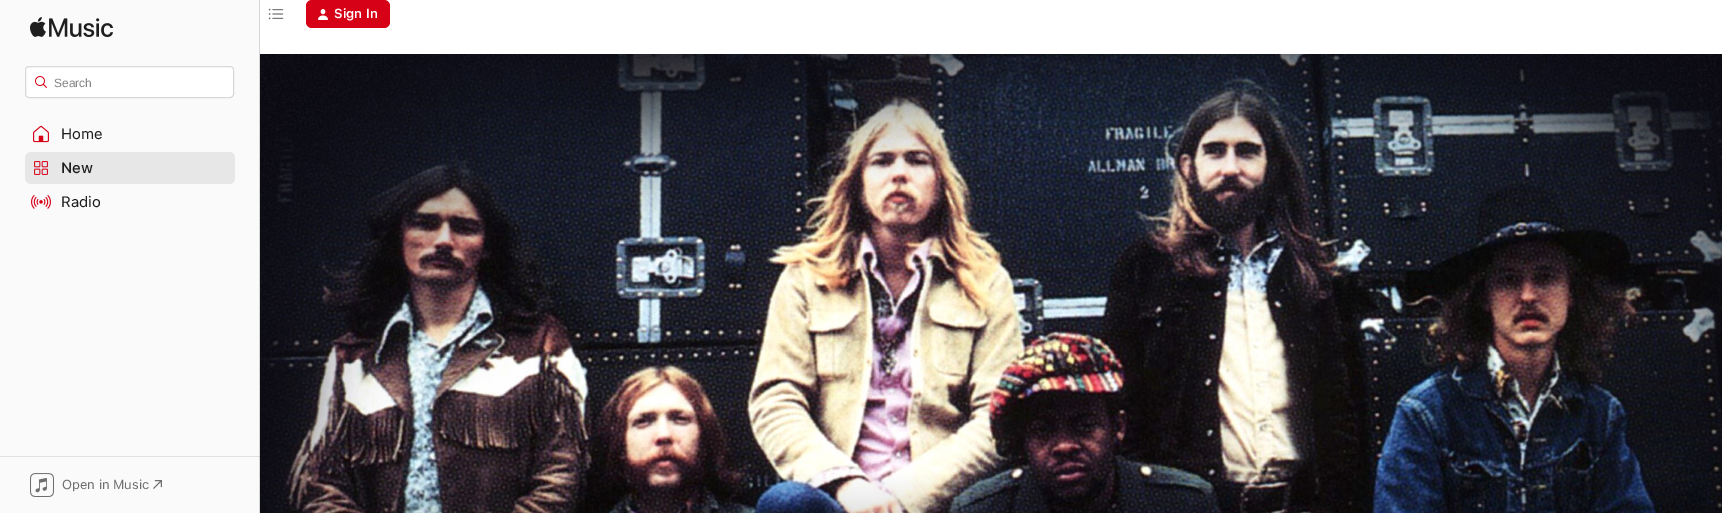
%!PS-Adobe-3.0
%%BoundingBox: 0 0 1722 513
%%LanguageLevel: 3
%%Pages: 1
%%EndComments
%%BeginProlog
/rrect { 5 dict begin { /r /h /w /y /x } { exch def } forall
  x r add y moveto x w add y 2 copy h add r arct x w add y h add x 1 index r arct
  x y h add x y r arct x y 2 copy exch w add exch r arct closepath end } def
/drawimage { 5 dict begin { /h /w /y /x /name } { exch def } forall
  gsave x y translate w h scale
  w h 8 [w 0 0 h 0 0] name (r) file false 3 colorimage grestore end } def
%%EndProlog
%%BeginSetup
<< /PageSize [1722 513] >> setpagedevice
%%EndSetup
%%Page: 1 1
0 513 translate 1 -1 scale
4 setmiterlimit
1 setgray
0 0 1722 513 rectfill
(images/1.raw) 268 8 16 12 drawimage
0.839 0 0.09 setrgbcolor
306 0 84 28 6 rrect fill
(images/2.raw) 318 9 10 11 drawimage
0.98 setgray
0 0 259 513 rectfill
0.882 setgray
0 456 260 1 rectfill
0.835 setgray
259 0 1 513 rectfill
0.753 setgray
259 456 1 1 rectfill
(images/3.raw) 30 17 83 20 drawimage
1 setgray
25.5 66.5 208 31 3.5 rrect gsave fill grestore
0.851 setgray
stroke
(images/4.raw) 35 76 12 12 drawimage
(images/5.raw) 33 125 16 18 drawimage
0.906 0.906 0.91 setrgbcolor
25 152 210 32 6 rrect fill
(images/6.raw) 34 161 14 14 drawimage
(images/7.raw) 31 195 20 14 drawimage
(images/8.raw) 30 473 24 24 drawimage
(images/9.raw) 153 480 9 9 drawimage
(images/10.raw) 260 54 1462 459 drawimage
/SF-SemiBold [13 0 0 -13 0 0] selectfont
1 setgray
334 18 moveto (Sign In) show
/LiberationSans-Regular [12 0 0 -12 0 0] selectfont
0.522 setgray
54 87 moveto (Search) show
/SF-Regular [15 0 0 -15 0 0] selectfont
0.118 setgray
61 139 moveto (Home) show
/SF-Medium [15 0 0 -15 0 0] selectfont
61 173 moveto (New) show
/SF-Regular [15 0 0 -15 0 0] selectfont
61 207 moveto (Radio) show
/SF-Regular [13 0 0 -13 0 0] selectfont
0.431 setgray
62 489 moveto (Open in Music) show
showpage
%%EOF
